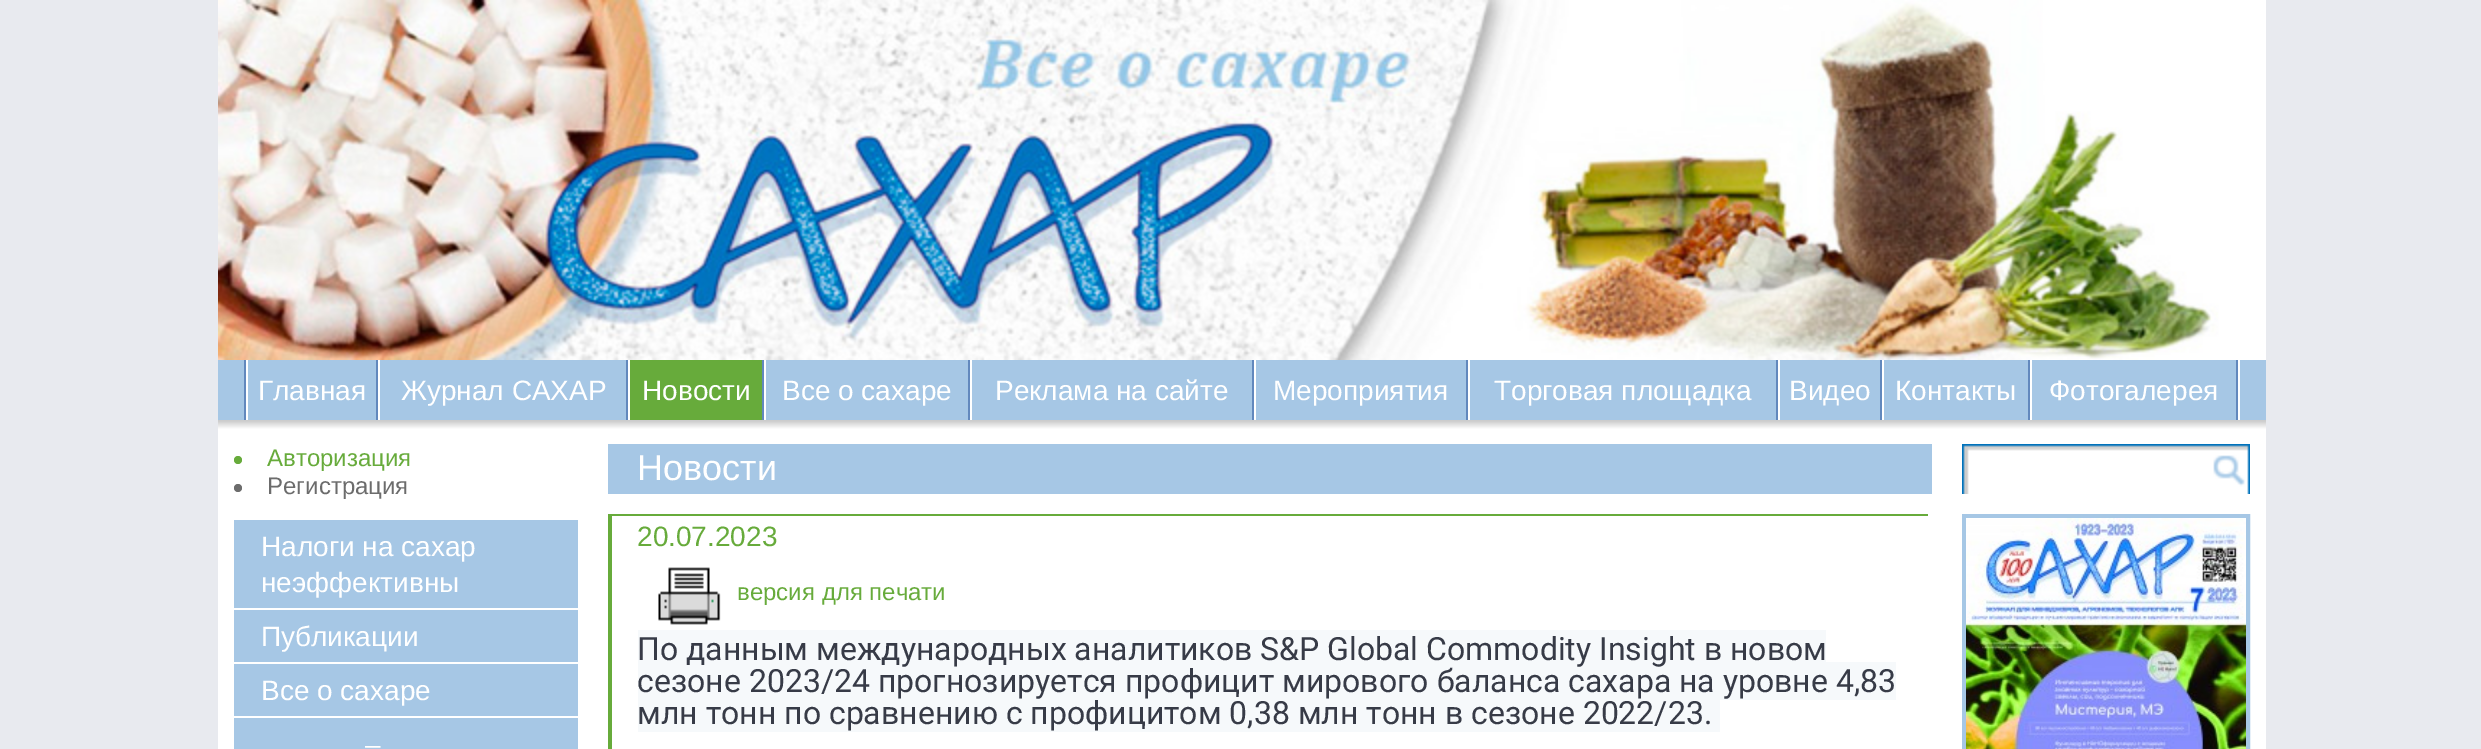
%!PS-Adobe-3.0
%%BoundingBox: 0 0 2481 749
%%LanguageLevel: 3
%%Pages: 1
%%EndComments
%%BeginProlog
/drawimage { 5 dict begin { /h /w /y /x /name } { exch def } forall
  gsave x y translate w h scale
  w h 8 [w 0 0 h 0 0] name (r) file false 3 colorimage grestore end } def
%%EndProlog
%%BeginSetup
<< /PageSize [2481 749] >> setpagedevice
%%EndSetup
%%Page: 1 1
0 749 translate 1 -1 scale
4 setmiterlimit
0.91 0.918 0.937 setrgbcolor
0 0 2481 749 rectfill
(images/1.raw) 218 0 2048 360 drawimage
0.651 0.78 0.898 setrgbcolor
218 360 2048 60 rectfill
1 setgray
2238 360 2 60 rectfill
0.384 0.533 0.741 setrgbcolor
244 360 2 60 rectfill
376 360 2 60 rectfill
1 setgray
246 360 2 60 rectfill
0.384 0.533 0.741 setrgbcolor
626 360 2 60 rectfill
1 setgray
378 360 2 60 rectfill
0.404 0.671 0.231 setrgbcolor
630 360 132 60 rectfill
0.384 0.533 0.741 setrgbcolor
762 360 2 60 rectfill
1 setgray
628 360 2 60 rectfill
0.384 0.533 0.741 setrgbcolor
968 360 2 60 rectfill
1 setgray
764 360 2 60 rectfill
0.384 0.533 0.741 setrgbcolor
1252 360 2 60 rectfill
1 setgray
970 360 2 60 rectfill
0.384 0.533 0.741 setrgbcolor
1466 360 2 60 rectfill
1 setgray
1254 360 2 60 rectfill
0.384 0.533 0.741 setrgbcolor
1776 360 2 60 rectfill
1 setgray
1468 360 2 60 rectfill
0.384 0.533 0.741 setrgbcolor
1880 360 2 60 rectfill
1 setgray
1778 360 2 60 rectfill
0.384 0.533 0.741 setrgbcolor
2028 360 2 60 rectfill
1 setgray
1882 360 2 60 rectfill
0.384 0.533 0.741 setrgbcolor
2236 360 2 60 rectfill
1 setgray
2030 360 2 60 rectfill
(images/2.raw) 218 420 2048 24 drawimage
218 444 2048 305 rectfill
0.404 0.671 0.231 setrgbcolor
newpath 238 460 4 0 360 arc closepath fill
0.424 setgray
newpath 238 488 4 0 360 arc closepath fill
0.651 0.78 0.898 setrgbcolor
234 520 344 88 rectfill
234 610 344 52 rectfill
234 664 344 52 rectfill
234 718 344 31 rectfill
608 444 1324 50 rectfill
0.404 0.671 0.231 setrgbcolor
608 514 1320 2 rectfill
608 514 4 235 rectfill
(images/3.raw) 658 567 63 58 drawimage
0.965 0.976 0.984 setrgbcolor
638 630 1188 32 rectfill
638 662 1258 38 rectfill
638 700 1082 32 rectfill
(images/4.raw) 1962 444 288 50 drawimage
0.651 0.78 0.898 setrgbcolor
4 setlinewidth
1964 516 284 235 rectstroke
(images/5.raw) 1966 518 280 231 drawimage
/LiberationSans-Regular [28 0 0 -28 0 0] selectfont
1 setgray
258 400 moveto (Главная) show
401 400 moveto (Журнал САХАР) show
642 400 moveto (Новости) show
782 400 moveto (Все о сахаре) show
995 400 moveto (Реклама на сайте) show
1273 400 moveto (Мероприятия) show
1494 400 moveto (Торговая площадка) show
1789 400 moveto (Видео) show
1895 400 moveto (Контакты) show
2049 400 moveto (Фотогалерея) show
/LiberationSans-Regular [24 0 0 -24 0 0] selectfont
0.404 0.671 0.231 setrgbcolor
267 466 moveto (Авторизация) show
0.424 setgray
267 494 moveto (Регистрация) show
/LiberationSans-Regular [28 0 0 -28 0 0] selectfont
1 setgray
261 556 moveto (Налоги на сахар) show
261 592 moveto (неэффективны) show
261 646 moveto (Публикации) show
261 700 moveto (Все о сахаре) show
365 754 moveto (–) show
/LiberationSans-Regular [36 0 0 -36 0 0] selectfont
637 480 moveto (Новости) show
/LiberationSans-Regular [28 0 0 -28 0 0] selectfont
0.404 0.671 0.231 setrgbcolor
637 546 moveto (20.07.2023) show
/LiberationSans-Regular [24 0 0 -24 0 0] selectfont
737 600 moveto (версия для печати) show
/Roboto-Regular [32 0 0 -32 0 0] selectfont
0.216 0.231 0.278 setrgbcolor
637 660 moveto (По данным международных аналитиков S&P Global Commodity Insight в новом) show
637 692 moveto (сезоне 2023/24 прогнозируется профицит мирового баланса сахара на уровне 4,83) show
637 724 moveto (млн тонн по сравнению с профицитом 0,38 млн тонн в сезоне 2022/23.) show
showpage
%%EOF
